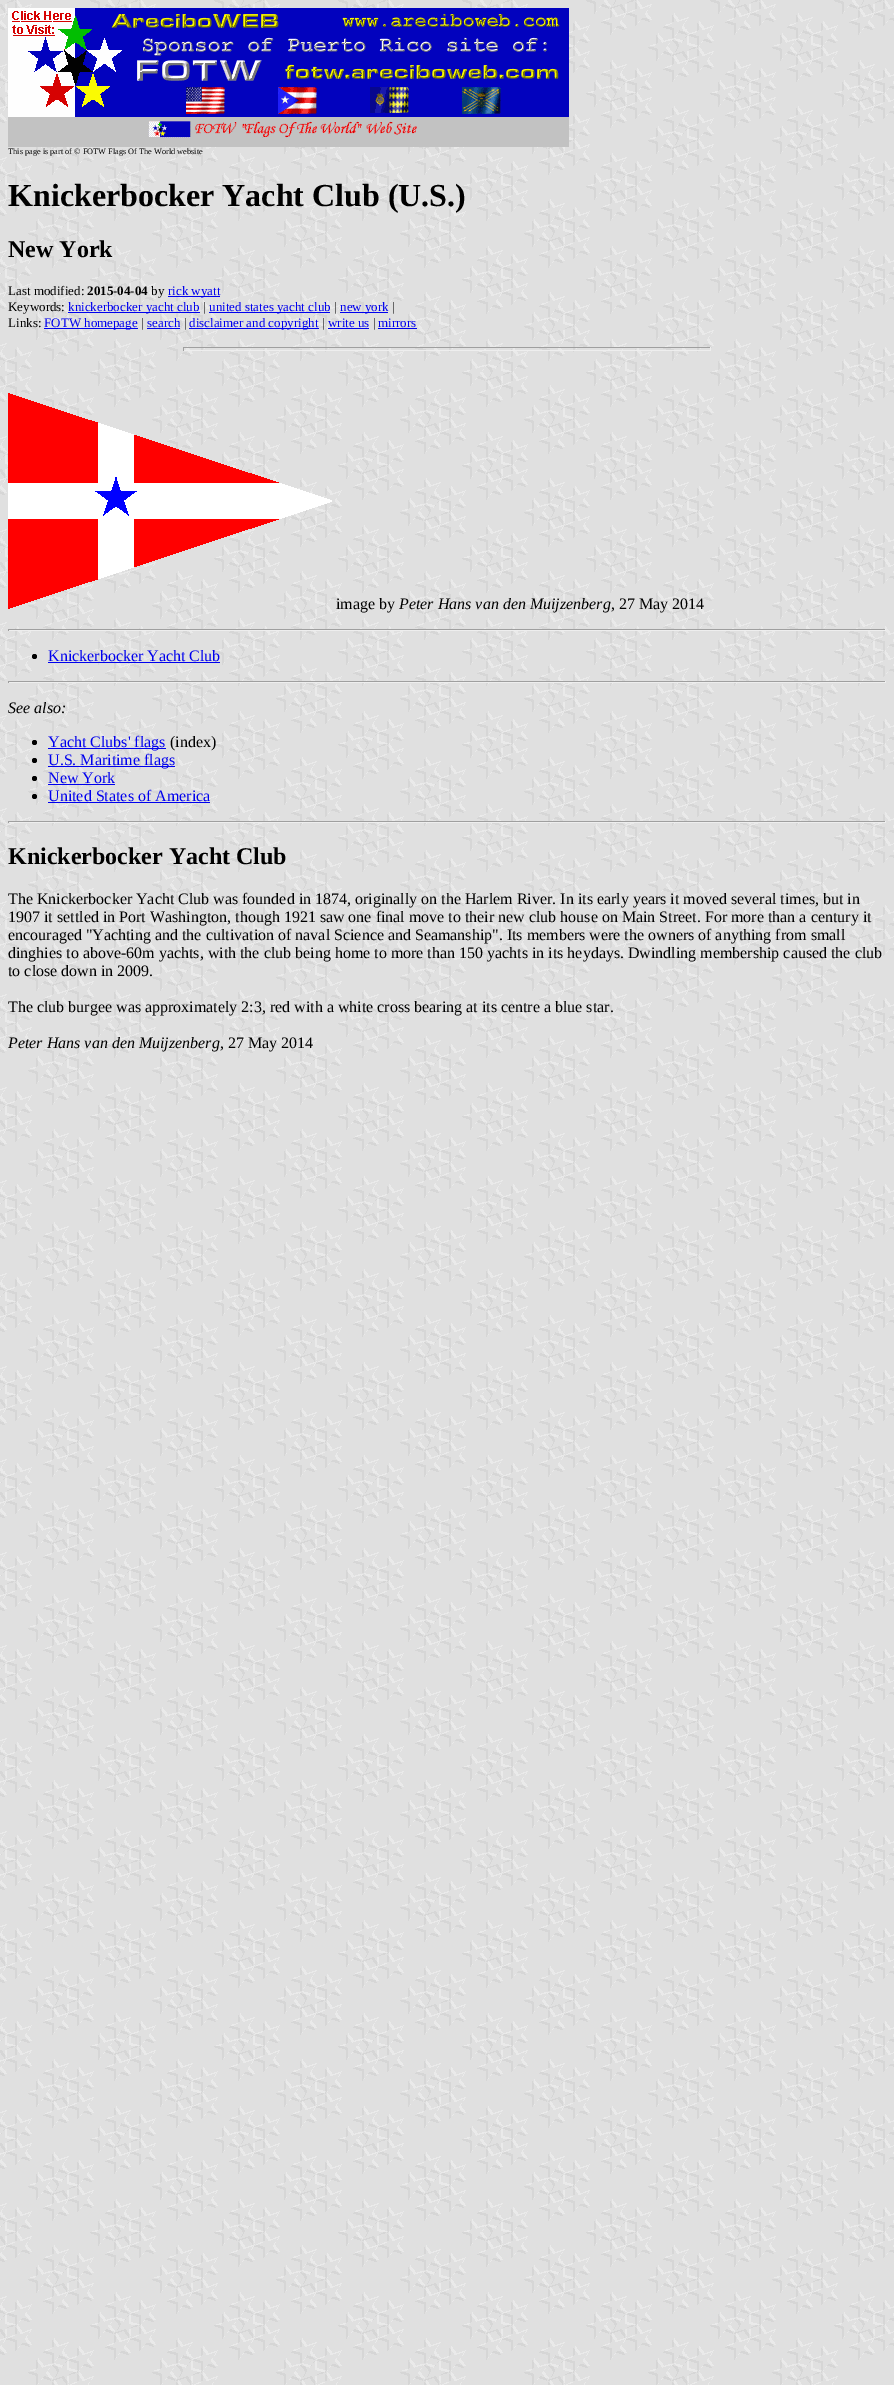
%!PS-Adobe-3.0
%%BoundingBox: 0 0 894 2385
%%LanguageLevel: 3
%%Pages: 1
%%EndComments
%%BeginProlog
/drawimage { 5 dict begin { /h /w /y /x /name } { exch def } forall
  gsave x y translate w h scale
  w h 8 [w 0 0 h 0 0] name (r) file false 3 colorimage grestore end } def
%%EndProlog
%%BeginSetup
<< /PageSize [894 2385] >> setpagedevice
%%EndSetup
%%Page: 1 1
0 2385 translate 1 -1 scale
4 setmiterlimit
1 setgray
0 0 894 2385 rectfill
(images/1.raw) 0 0 894 2385 drawimage
(images/2.raw) 8 8 561 139 drawimage
0 0 0.933 setrgbcolor
168 296 52 1 rectfill
68 312 132 1 rectfill
209 312 121 1 rectfill
340 312 48 1 rectfill
44 328 94 1 rectfill
147 328 33 1 rectfill
189 328 130 1 rectfill
328 328 41 1 rectfill
378 328 39 1 rectfill
0.624 setgray
183 347 528 1 rectfill
0.933 setgray
710 347 1 4 rectfill
183 350 528 1 rectfill
0.624 setgray
183 347 1 4 rectfill
(images/3.raw) 8 393 324 216 drawimage
8 629 878 1 rectfill
0.933 setgray
885 629 1 2 rectfill
8 630 878 1 rectfill
0.624 setgray
8 629 1 2 rectfill
0 setgray
newpath 34.5 656.5 2.5 0 360 arc closepath fill
0 0 0.933 setrgbcolor
48 662 172 1 rectfill
0.624 setgray
8 681 878 1 rectfill
0.933 setgray
885 681 1 2 rectfill
8 682 878 1 rectfill
0.624 setgray
8 681 1 2 rectfill
0 setgray
newpath 34.5 742.5 2.5 0 360 arc closepath fill
0 0 0.933 setrgbcolor
48 748 118 1 rectfill
0 setgray
newpath 34.5 760.5 2.5 0 360 arc closepath fill
0 0 0.933 setrgbcolor
48 766 127 1 rectfill
0 setgray
newpath 34.5 778.5 2.5 0 360 arc closepath fill
0 0 0.933 setrgbcolor
48 784 67 1 rectfill
0 setgray
newpath 34.5 796.5 2.5 0 360 arc closepath fill
0 0 0.933 setrgbcolor
48 802 162 1 rectfill
0.624 setgray
8 821 878 1 rectfill
0.933 setgray
885 821 1 2 rectfill
8 822 878 1 rectfill
0.624 setgray
8 821 1 2 rectfill
/LiberationSerif-Regular [8.3 0 0 -8.3 0 0] selectfont
0 setgray
8 154 moveto (This page is part of © FOTW Flags Of The World website) show
/LiberationSerif-Bold [32 0 0 -32 0 0] selectfont
8 206 moveto (Knickerbocker Yacht Club \(U.S.\)) show
/LiberationSerif-Bold [24 0 0 -24 0 0] selectfont
8 257 moveto (New York) show
/LiberationSerif-Regular [13 0 0 -13 0 0] selectfont
8 295 moveto (Last modified:) show
/LiberationSerif-Bold [13 0 0 -13 0 0] selectfont
87 295 moveto (2015-04-04) show
/LiberationSerif-Regular [13 0 0 -13 0 0] selectfont
151 295 moveto (by) show
0 0 0.933 setrgbcolor
168 295 moveto (rick wyatt) show
0 setgray
8 311 moveto (Keywords:) show
0 0 0.933 setrgbcolor
68 311 moveto (knickerbocker yacht club) show
0 setgray
203 311 moveto (|) show
0 0 0.933 setrgbcolor
209 311 moveto (united states yacht club) show
0 setgray
334 311 moveto (|) show
0 0 0.933 setrgbcolor
340 311 moveto (new york) show
0 setgray
392 311 moveto (|) show
8 327 moveto (Links:) show
0 0 0.933 setrgbcolor
44 327 moveto (FOTW homepage) show
0 setgray
141 327 moveto (|) show
0 0 0.933 setrgbcolor
147 327 moveto (search) show
0 setgray
184 327 moveto (|) show
0 0 0.933 setrgbcolor
189 327 moveto (disclaimer and copyright) show
0 setgray
322 327 moveto (|) show
0 0 0.933 setrgbcolor
328 327 moveto (write us) show
0 setgray
373 327 moveto (|) show
0 0 0.933 setrgbcolor
378 327 moveto (mirrors) show
/LiberationSerif-Regular [16 0 0 -16 0 0] selectfont
0 setgray
336 609 moveto (image by) show
/LiberationSerif-Italic [16 0 0 -16 0 0] selectfont
399 609 moveto (Peter Hans van den Muijzenberg) show
/LiberationSerif-Regular [16 0 0 -16 0 0] selectfont
611 609 moveto (, 27 May 2014) show
0 0 0.933 setrgbcolor
48 661 moveto (Knickerbocker Yacht Club) show
/LiberationSerif-Italic [16 0 0 -16 0 0] selectfont
0 setgray
8 713 moveto (See also:) show
/LiberationSerif-Regular [16 0 0 -16 0 0] selectfont
0 0 0.933 setrgbcolor
48 747 moveto (Yacht Clubs' flags) show
0 setgray
170 747 moveto (\(index\)) show
0 0 0.933 setrgbcolor
48 765 moveto (U.S. Maritime flags) show
48 783 moveto (New York) show
48 801 moveto (United States of America) show
/LiberationSerif-Bold [24 0 0 -24 0 0] selectfont
0 setgray
8 864 moveto (Knickerbocker Yacht Club) show
/LiberationSerif-Regular [16 0 0 -16 0 0] selectfont
8 904 moveto (The Knickerbocker Yacht Club was founded in 1874, originally on the Harlem River. In its early years it moved several times, but in) show
8 922 moveto (1907 it settled in Port Washington, though 1921 saw one final move to their new club house on Main Street. For more than a century it) show
8 940 moveto (encouraged "Yachting and the cultivation of naval Science and Seamanship". Its members were the owners of anything from small) show
8 958 moveto (dinghies to above-60m yachts, with the club being home to more than 150 yachts in its heydays. Dwindling membership caused the club) show
8 976 moveto (to close down in 2009.) show
8 1012 moveto (The club burgee was approximately 2:3, red with a white cross bearing at its centre a blue star.) show
/LiberationSerif-Italic [16 0 0 -16 0 0] selectfont
8 1048 moveto (Peter Hans van den Muijzenberg) show
/LiberationSerif-Regular [16 0 0 -16 0 0] selectfont
220 1048 moveto (, 27 May 2014) show
showpage
%%EOF
